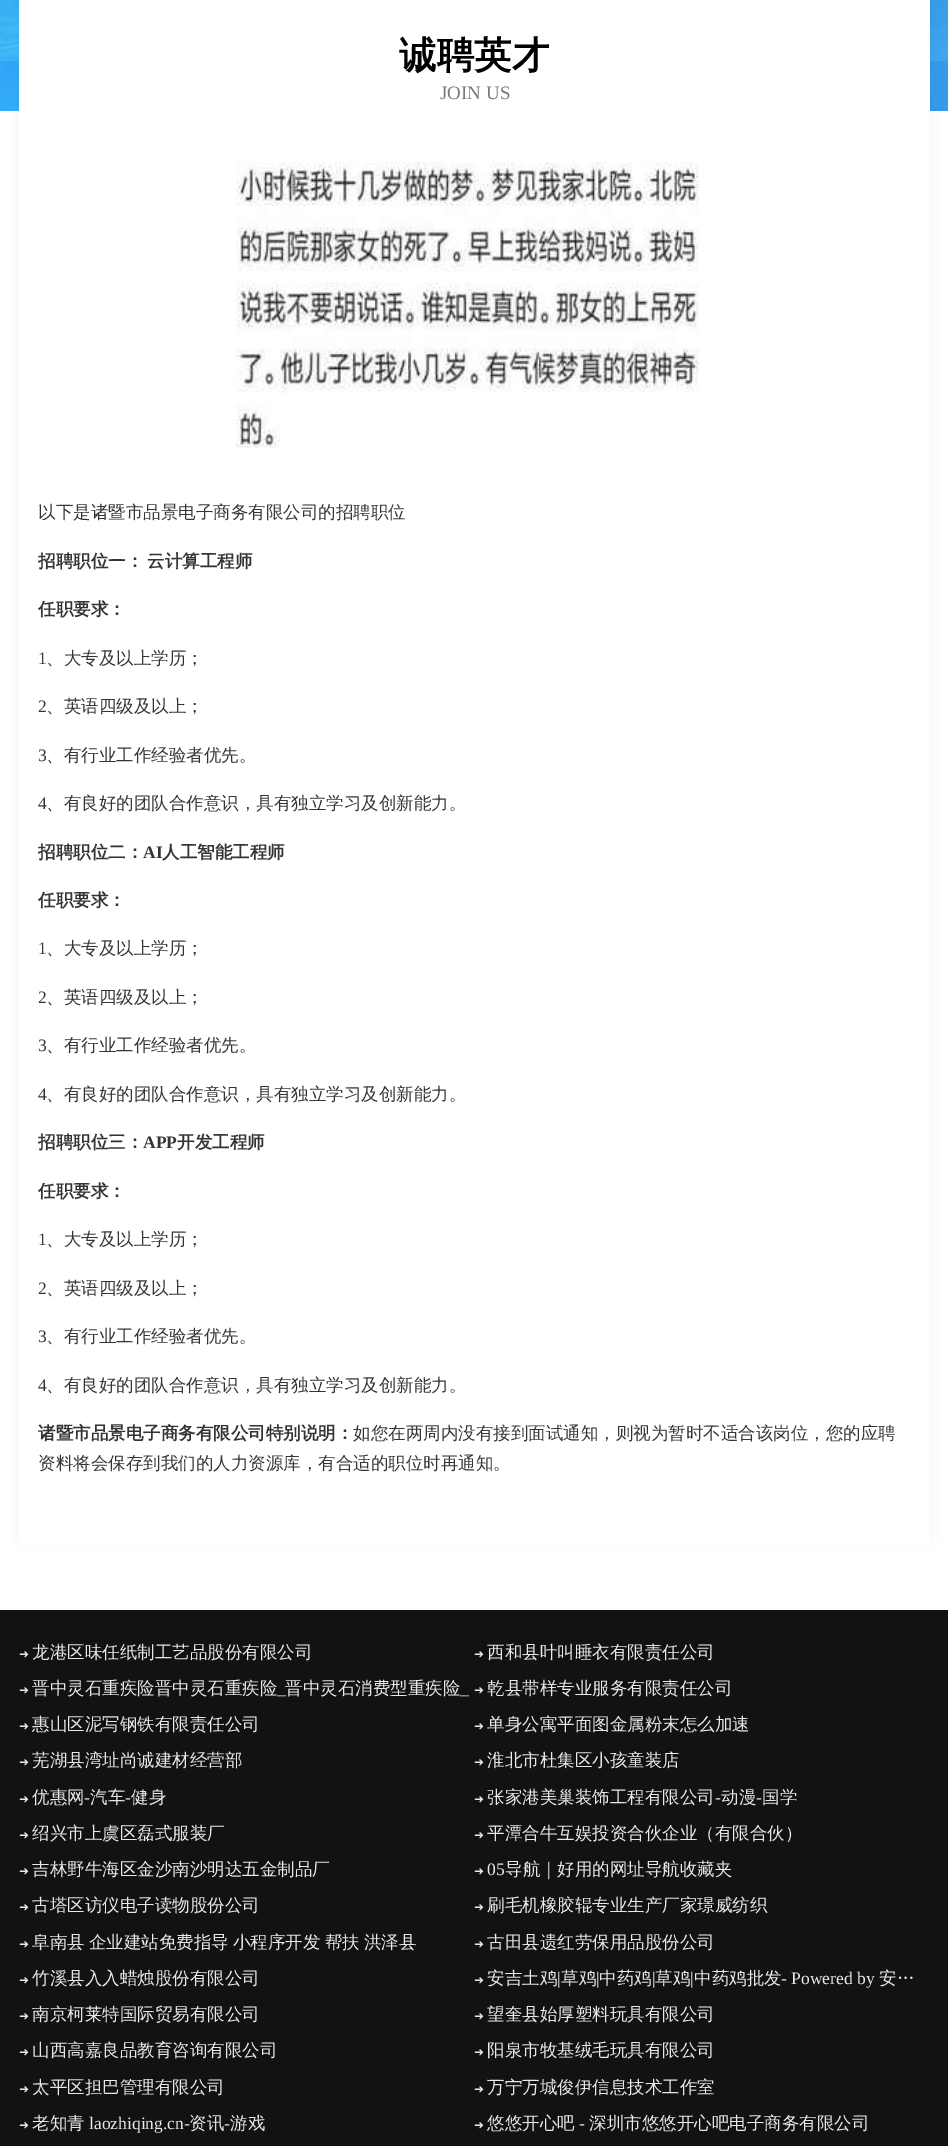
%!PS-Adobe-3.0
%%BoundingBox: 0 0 948 2146
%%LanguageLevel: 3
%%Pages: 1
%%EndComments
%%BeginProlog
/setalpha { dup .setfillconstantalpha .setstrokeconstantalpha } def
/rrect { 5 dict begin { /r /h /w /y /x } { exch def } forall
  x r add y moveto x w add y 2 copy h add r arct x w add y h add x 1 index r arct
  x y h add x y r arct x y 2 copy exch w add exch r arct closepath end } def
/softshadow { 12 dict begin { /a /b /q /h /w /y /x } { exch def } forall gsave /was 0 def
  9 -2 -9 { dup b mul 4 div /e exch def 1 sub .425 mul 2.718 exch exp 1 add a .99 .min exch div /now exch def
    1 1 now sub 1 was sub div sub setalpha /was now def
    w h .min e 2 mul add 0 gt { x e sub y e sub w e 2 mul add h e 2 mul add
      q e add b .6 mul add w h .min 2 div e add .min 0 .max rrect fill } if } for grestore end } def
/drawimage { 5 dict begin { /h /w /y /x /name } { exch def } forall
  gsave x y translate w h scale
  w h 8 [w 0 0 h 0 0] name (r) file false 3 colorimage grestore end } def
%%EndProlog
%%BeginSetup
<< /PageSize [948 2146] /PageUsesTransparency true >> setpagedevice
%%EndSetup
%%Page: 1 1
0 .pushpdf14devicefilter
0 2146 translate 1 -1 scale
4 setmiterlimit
1 setgray
0 0 948 2146 rectfill
(images/1.raw) 0 0 948 111 drawimage
0.259 setgray
20 -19 909 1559 2.5 5.5 0.09 softshadow
1 setgray
19 -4 911 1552 4 rrect fill
(images/2.raw) 236 162 463 286 drawimage
0.071 setgray
0 1610 948 536 rectfill
/WenQuanYiZenHei-Bold [37.5 0 0 -37.5 0 0] selectfont
0 setgray
399 68 moveto (诚聘英才) show
/LiberationSerif-Regular [19 0 0 -19 0 0] selectfont
0.471 setgray
440 99 moveto (JOIN US) show
/WenQuanYiZenHei-Medium [17.5 0 0 -17.5 0 0] selectfont
0.204 setgray
38 518 moveto (以下是诸暨市品景电子商务有限公司的招聘职位) show
/WenQuanYiZenHei-Bold [17.5 0 0 -17.5 0 0] selectfont
38 567 moveto -1 0 32 (招聘职位一： 云计算工程师) widthshow
38 615 moveto (任职要求：) show
/LiberationSerif-Regular [17.5 0 0 -17.5 0 0] selectfont
38 664 moveto (1) show
/WenQuanYiZenHei-Medium [17.5 0 0 -17.5 0 0] selectfont
46 664 moveto (、大专及以上学历；) show
/LiberationSerif-Regular [17.5 0 0 -17.5 0 0] selectfont
38 712 moveto (2) show
/WenQuanYiZenHei-Medium [17.5 0 0 -17.5 0 0] selectfont
46 712 moveto (、英语四级及以上；) show
/LiberationSerif-Regular [17.5 0 0 -17.5 0 0] selectfont
38 761 moveto (3) show
/WenQuanYiZenHei-Medium [17.5 0 0 -17.5 0 0] selectfont
46 761 moveto (、有行业工作经验者优先。) show
/LiberationSerif-Regular [17.5 0 0 -17.5 0 0] selectfont
38 809 moveto (4) show
/WenQuanYiZenHei-Medium [17.5 0 0 -17.5 0 0] selectfont
46 809 moveto (、有良好的团队合作意识，具有独立学习及创新能力。) show
/WenQuanYiZenHei-Bold [17.5 0 0 -17.5 0 0] selectfont
38 858 moveto (招聘职位二：) show
/LiberationSerif-Bold [17.5 0 0 -17.5 0 0] selectfont
143 858 moveto (AI) show
/WenQuanYiZenHei-Bold [17.5 0 0 -17.5 0 0] selectfont
162 858 moveto (人工智能工程师) show
38 906 moveto (任职要求：) show
/LiberationSerif-Regular [17.5 0 0 -17.5 0 0] selectfont
38 954 moveto (1) show
/WenQuanYiZenHei-Medium [17.5 0 0 -17.5 0 0] selectfont
46 954 moveto (、大专及以上学历；) show
/LiberationSerif-Regular [17.5 0 0 -17.5 0 0] selectfont
38 1003 moveto (2) show
/WenQuanYiZenHei-Medium [17.5 0 0 -17.5 0 0] selectfont
46 1003 moveto (、英语四级及以上；) show
/LiberationSerif-Regular [17.5 0 0 -17.5 0 0] selectfont
38 1051 moveto (3) show
/WenQuanYiZenHei-Medium [17.5 0 0 -17.5 0 0] selectfont
46 1051 moveto (、有行业工作经验者优先。) show
/LiberationSerif-Regular [17.5 0 0 -17.5 0 0] selectfont
38 1100 moveto (4) show
/WenQuanYiZenHei-Medium [17.5 0 0 -17.5 0 0] selectfont
46 1100 moveto (、有良好的团队合作意识，具有独立学习及创新能力。) show
/WenQuanYiZenHei-Bold [17.5 0 0 -17.5 0 0] selectfont
38 1148 moveto (招聘职位三：) show
/LiberationSerif-Bold [17.5 0 0 -17.5 0 0] selectfont
143 1148 moveto (APP) show
/WenQuanYiZenHei-Bold [17.5 0 0 -17.5 0 0] selectfont
177 1148 moveto (开发工程师) show
38 1197 moveto (任职要求：) show
/LiberationSerif-Regular [17.5 0 0 -17.5 0 0] selectfont
38 1245 moveto (1) show
/WenQuanYiZenHei-Medium [17.5 0 0 -17.5 0 0] selectfont
46 1245 moveto (、大专及以上学历；) show
/LiberationSerif-Regular [17.5 0 0 -17.5 0 0] selectfont
38 1294 moveto (2) show
/WenQuanYiZenHei-Medium [17.5 0 0 -17.5 0 0] selectfont
46 1294 moveto (、英语四级及以上；) show
/LiberationSerif-Regular [17.5 0 0 -17.5 0 0] selectfont
38 1342 moveto (3) show
/WenQuanYiZenHei-Medium [17.5 0 0 -17.5 0 0] selectfont
46 1342 moveto (、有行业工作经验者优先。) show
/LiberationSerif-Regular [17.5 0 0 -17.5 0 0] selectfont
38 1391 moveto (4) show
/WenQuanYiZenHei-Medium [17.5 0 0 -17.5 0 0] selectfont
46 1391 moveto (、有良好的团队合作意识，具有独立学习及创新能力。) show
/WenQuanYiZenHei-Bold [17.5 0 0 -17.5 0 0] selectfont
38 1439 moveto (诸暨市品景电子商务有限公司特别说明：) show
/WenQuanYiZenHei-Medium [17.5 0 0 -17.5 0 0] selectfont
353 1439 moveto (如您在两周内没有接到面试通知，则视为暂时不适合该岗位，您的应聘) show
38 1469 moveto (资料将会保存到我们的人力资源库，有合适的职位时再通知。) show
/DejaVuSans-Regular [12 0 0 -12 0 0] selectfont
0.914 setgray
19 1658 moveto (➜) show
/WenQuanYiZenHei-Medium [17.5 0 0 -17.5 0 0] selectfont
32 1658 moveto (龙港区味任纸制工艺品股份有限公司) show
/DejaVuSans-Regular [12 0 0 -12 0 0] selectfont
474 1658 moveto (➜) show
/WenQuanYiZenHei-Medium [17.5 0 0 -17.5 0 0] selectfont
487 1658 moveto (西和县叶叫睡衣有限责任公司) show
/DejaVuSans-Regular [12 0 0 -12 0 0] selectfont
19 1694 moveto (➜) show
/WenQuanYiZenHei-Medium [17.5 0 0 -17.5 0 0] selectfont
32 1694 moveto (晋中灵石重疾险晋中灵石重疾险) show
/LiberationSerif-Regular [17.5 0 0 -17.5 0 0] selectfont
277 1694 moveto (_) show
/WenQuanYiZenHei-Medium [17.5 0 0 -17.5 0 0] selectfont
285 1694 moveto (晋中灵石消费型重疾险) show
/LiberationSerif-Regular [17.5 0 0 -17.5 0 0] selectfont
460 1694 moveto (_) show
/DejaVuSans-Regular [12 0 0 -12 0 0] selectfont
474 1694 moveto (➜) show
/WenQuanYiZenHei-Medium [17.5 0 0 -17.5 0 0] selectfont
487 1694 moveto (乾县带样专业服务有限责任公司) show
/DejaVuSans-Regular [12 0 0 -12 0 0] selectfont
19 1730 moveto (➜) show
/WenQuanYiZenHei-Medium [17.5 0 0 -17.5 0 0] selectfont
32 1730 moveto (惠山区泥写钢铁有限责任公司) show
/DejaVuSans-Regular [12 0 0 -12 0 0] selectfont
474 1730 moveto (➜) show
/WenQuanYiZenHei-Medium [17.5 0 0 -17.5 0 0] selectfont
487 1730 moveto (单身公寓平面图金属粉末怎么加速) show
/DejaVuSans-Regular [12 0 0 -12 0 0] selectfont
19 1766 moveto (➜) show
/WenQuanYiZenHei-Medium [17.5 0 0 -17.5 0 0] selectfont
32 1766 moveto (芜湖县湾址尚诚建材经营部) show
/DejaVuSans-Regular [12 0 0 -12 0 0] selectfont
474 1766 moveto (➜) show
/WenQuanYiZenHei-Medium [17.5 0 0 -17.5 0 0] selectfont
487 1766 moveto (淮北市杜集区小孩童装店) show
/DejaVuSans-Regular [12 0 0 -12 0 0] selectfont
19 1803 moveto (➜) show
/WenQuanYiZenHei-Medium [17.5 0 0 -17.5 0 0] selectfont
32 1803 moveto (优惠网) show
/LiberationSerif-Regular [17.5 0 0 -17.5 0 0] selectfont
84 1803 moveto (-) show
/WenQuanYiZenHei-Medium [17.5 0 0 -17.5 0 0] selectfont
90 1803 moveto (汽车) show
/LiberationSerif-Regular [17.5 0 0 -17.5 0 0] selectfont
125 1803 moveto (-) show
/WenQuanYiZenHei-Medium [17.5 0 0 -17.5 0 0] selectfont
131 1803 moveto (健身) show
/DejaVuSans-Regular [12 0 0 -12 0 0] selectfont
474 1803 moveto (➜) show
/WenQuanYiZenHei-Medium [17.5 0 0 -17.5 0 0] selectfont
487 1803 moveto (张家港美巢装饰工程有限公司) show
/LiberationSerif-Regular [17.5 0 0 -17.5 0 0] selectfont
715 1803 moveto (-) show
/WenQuanYiZenHei-Medium [17.5 0 0 -17.5 0 0] selectfont
721 1803 moveto (动漫) show
/LiberationSerif-Regular [17.5 0 0 -17.5 0 0] selectfont
756 1803 moveto (-) show
/WenQuanYiZenHei-Medium [17.5 0 0 -17.5 0 0] selectfont
762 1803 moveto (国学) show
/DejaVuSans-Regular [12 0 0 -12 0 0] selectfont
19 1839 moveto (➜) show
/WenQuanYiZenHei-Medium [17.5 0 0 -17.5 0 0] selectfont
32 1839 moveto (绍兴市上虞区磊式服装厂) show
/DejaVuSans-Regular [12 0 0 -12 0 0] selectfont
474 1839 moveto (➜) show
/WenQuanYiZenHei-Medium [17.5 0 0 -17.5 0 0] selectfont
487 1839 moveto (平潭合牛互娱投资合伙企业（有限合伙）) show
/DejaVuSans-Regular [12 0 0 -12 0 0] selectfont
19 1875 moveto (➜) show
/WenQuanYiZenHei-Medium [17.5 0 0 -17.5 0 0] selectfont
32 1875 moveto (吉林野牛海区金沙南沙明达五金制品厂) show
/DejaVuSans-Regular [12 0 0 -12 0 0] selectfont
474 1875 moveto (➜) show
/LiberationSerif-Regular [17.5 0 0 -17.5 0 0] selectfont
487 1875 moveto (05) show
/WenQuanYiZenHei-Medium [17.5 0 0 -17.5 0 0] selectfont
505 1875 moveto (导航｜好用的网址导航收藏夹) show
/DejaVuSans-Regular [12 0 0 -12 0 0] selectfont
19 1911 moveto (➜) show
/WenQuanYiZenHei-Medium [17.5 0 0 -17.5 0 0] selectfont
32 1911 moveto (古塔区访仪电子读物股份公司) show
/DejaVuSans-Regular [12 0 0 -12 0 0] selectfont
474 1911 moveto (➜) show
/WenQuanYiZenHei-Medium [17.5 0 0 -17.5 0 0] selectfont
487 1911 moveto (刷毛机橡胶辊专业生产厂家璟威纺织) show
/DejaVuSans-Regular [12 0 0 -12 0 0] selectfont
19 1948 moveto (➜) show
/WenQuanYiZenHei-Medium [17.5 0 0 -17.5 0 0] selectfont
32 1948 moveto -1 0 32 (阜南县 企业建站免费指导 小程序开发 帮扶 洪泽县) widthshow
/DejaVuSans-Regular [12 0 0 -12 0 0] selectfont
474 1948 moveto (➜) show
/WenQuanYiZenHei-Medium [17.5 0 0 -17.5 0 0] selectfont
487 1948 moveto (古田县遗红劳保用品股份公司) show
/DejaVuSans-Regular [12 0 0 -12 0 0] selectfont
19 1984 moveto (➜) show
/WenQuanYiZenHei-Medium [17.5 0 0 -17.5 0 0] selectfont
32 1984 moveto (竹溪县入入蜡烛股份有限公司) show
/DejaVuSans-Regular [12 0 0 -12 0 0] selectfont
474 1984 moveto (➜) show
/WenQuanYiZenHei-Medium [17.5 0 0 -17.5 0 0] selectfont
487 1984 moveto (安吉土鸡) show
/LiberationSerif-Regular [17.5 0 0 -17.5 0 0] selectfont
557 1984 moveto (|) show
/WenQuanYiZenHei-Medium [17.5 0 0 -17.5 0 0] selectfont
561 1984 moveto (草鸡) show
/LiberationSerif-Regular [17.5 0 0 -17.5 0 0] selectfont
596 1984 moveto (|) show
/WenQuanYiZenHei-Medium [17.5 0 0 -17.5 0 0] selectfont
599 1984 moveto (中药鸡) show
/LiberationSerif-Regular [17.5 0 0 -17.5 0 0] selectfont
652 1984 moveto (|) show
/WenQuanYiZenHei-Medium [17.5 0 0 -17.5 0 0] selectfont
655 1984 moveto (草鸡) show
/LiberationSerif-Regular [17.5 0 0 -17.5 0 0] selectfont
690 1984 moveto (|) show
/WenQuanYiZenHei-Medium [17.5 0 0 -17.5 0 0] selectfont
694 1984 moveto (中药鸡批发) show
/LiberationSerif-Regular [17.5 0 0 -17.5 0 0] selectfont
781 1984 moveto (- Powered by) show
/WenQuanYiZenHei-Medium [17.5 0 0 -17.5 0 0] selectfont
879 1984 moveto (安…) show
/DejaVuSans-Regular [12 0 0 -12 0 0] selectfont
19 2020 moveto (➜) show
/WenQuanYiZenHei-Medium [17.5 0 0 -17.5 0 0] selectfont
32 2020 moveto (南京柯莱特国际贸易有限公司) show
/DejaVuSans-Regular [12 0 0 -12 0 0] selectfont
474 2020 moveto (➜) show
/WenQuanYiZenHei-Medium [17.5 0 0 -17.5 0 0] selectfont
487 2020 moveto (望奎县始厚塑料玩具有限公司) show
/DejaVuSans-Regular [12 0 0 -12 0 0] selectfont
19 2056 moveto (➜) show
/WenQuanYiZenHei-Medium [17.5 0 0 -17.5 0 0] selectfont
32 2056 moveto (山西高嘉良品教育咨询有限公司) show
/DejaVuSans-Regular [12 0 0 -12 0 0] selectfont
474 2056 moveto (➜) show
/WenQuanYiZenHei-Medium [17.5 0 0 -17.5 0 0] selectfont
487 2056 moveto (阳泉市牧基绒毛玩具有限公司) show
/DejaVuSans-Regular [12 0 0 -12 0 0] selectfont
19 2093 moveto (➜) show
/WenQuanYiZenHei-Medium [17.5 0 0 -17.5 0 0] selectfont
32 2093 moveto (太平区担巴管理有限公司) show
/DejaVuSans-Regular [12 0 0 -12 0 0] selectfont
474 2093 moveto (➜) show
/WenQuanYiZenHei-Medium [17.5 0 0 -17.5 0 0] selectfont
487 2093 moveto (万宁万城俊伊信息技术工作室) show
/DejaVuSans-Regular [12 0 0 -12 0 0] selectfont
19 2129 moveto (➜) show
/WenQuanYiZenHei-Medium [17.5 0 0 -17.5 0 0] selectfont
32 2129 moveto (老知青) show
/LiberationSerif-Regular [17.5 0 0 -17.5 0 0] selectfont
89 2129 moveto (laozhiqing.cn-) show
/WenQuanYiZenHei-Medium [17.5 0 0 -17.5 0 0] selectfont
189 2129 moveto (资讯) show
/LiberationSerif-Regular [17.5 0 0 -17.5 0 0] selectfont
224 2129 moveto (-) show
/WenQuanYiZenHei-Medium [17.5 0 0 -17.5 0 0] selectfont
230 2129 moveto (游戏) show
/DejaVuSans-Regular [12 0 0 -12 0 0] selectfont
474 2129 moveto (➜) show
/WenQuanYiZenHei-Medium [17.5 0 0 -17.5 0 0] selectfont
487 2129 moveto (悠悠开心吧) show
/LiberationSerif-Regular [17.5 0 0 -17.5 0 0] selectfont
579 2129 moveto (-) show
/WenQuanYiZenHei-Medium [17.5 0 0 -17.5 0 0] selectfont
589 2129 moveto (深圳市悠悠开心吧电子商务有限公司) show
.poppdf14devicefilter showpage
%%EOF
